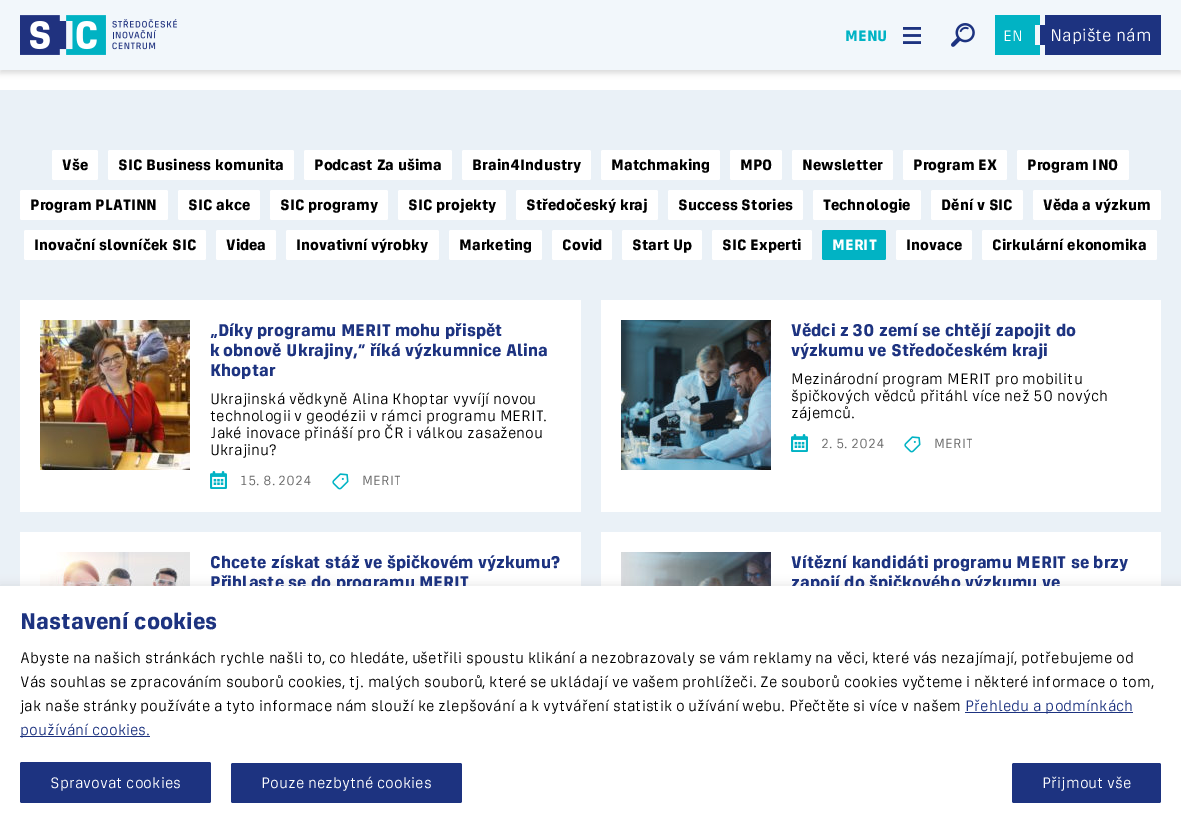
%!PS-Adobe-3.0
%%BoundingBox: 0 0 1181 823
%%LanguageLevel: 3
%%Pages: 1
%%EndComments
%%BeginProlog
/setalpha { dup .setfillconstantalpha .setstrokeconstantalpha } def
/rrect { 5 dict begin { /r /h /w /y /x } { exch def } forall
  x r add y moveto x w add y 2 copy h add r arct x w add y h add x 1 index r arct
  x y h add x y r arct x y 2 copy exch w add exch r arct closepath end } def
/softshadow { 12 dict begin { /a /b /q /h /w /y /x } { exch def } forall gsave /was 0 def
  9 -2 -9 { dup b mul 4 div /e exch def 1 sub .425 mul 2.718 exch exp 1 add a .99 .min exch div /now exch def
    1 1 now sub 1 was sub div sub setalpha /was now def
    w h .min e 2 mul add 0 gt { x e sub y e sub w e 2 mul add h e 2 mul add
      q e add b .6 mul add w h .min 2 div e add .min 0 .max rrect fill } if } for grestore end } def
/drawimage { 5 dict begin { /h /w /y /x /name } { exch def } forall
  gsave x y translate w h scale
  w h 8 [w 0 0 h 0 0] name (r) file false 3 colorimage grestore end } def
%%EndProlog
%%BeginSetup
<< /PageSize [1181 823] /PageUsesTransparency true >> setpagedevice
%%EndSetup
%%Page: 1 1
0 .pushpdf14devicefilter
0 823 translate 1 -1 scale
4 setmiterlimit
1 setgray
0 0 1181 823 rectfill
0 setgray
0 3 1181 70 0 3 0.15 softshadow
0.949 0.969 0.984 setrgbcolor
0 0 1181 70 rectfill
(images/1.raw) 20 15 157 40 drawimage
(images/2.raw) 903 27 18 17 drawimage
(images/3.raw) 951 23 24 24 drawimage
0.004 0.702 0.769 setrgbcolor
995 15 45 40 rectfill
0.949 0.969 0.984 setrgbcolor
1035 25 5 20 rectfill
0.114 0.2 0.502 setrgbcolor
1045 15 116 40 rectfill
1040 25 5 20 rectfill
0.918 0.945 0.969 setrgbcolor
0 90 1181 496 rectfill
1 setgray
52 150 46 30 2 rrect fill
108 150 186 30 2 rrect fill
304 150 148 30 2 rrect fill
462 150 129 30 2 rrect fill
601 150 119 30 2 rrect fill
730 150 52 30 2 rrect fill
792 150 101 30 2 rrect fill
903 150 104 30 2 rrect fill
1017 150 112 30 2 rrect fill
20 190 148 30 2 rrect fill
178 190 82 30 2 rrect fill
270 190 118 30 2 rrect fill
398 190 108 30 2 rrect fill
516 190 142 30 2 rrect fill
668 190 135 30 2 rrect fill
813 190 108 30 2 rrect fill
931 190 92 30 2 rrect fill
1033 190 128 30 2 rrect fill
24 230 182 30 2 rrect fill
216 230 60 30 2 rrect fill
286 230 153 30 2 rrect fill
449 230 93 30 2 rrect fill
552 230 60 30 2 rrect fill
622 230 80 30 2 rrect fill
712 230 100 30 2 rrect fill
0.004 0.702 0.769 setrgbcolor
822 230 64 30 2 rrect fill
1 setgray
896 230 76 30 2 rrect fill
982 230 175 30 2 rrect fill
20 300 561 212 rectfill
(images/4.raw) 40 320 150 150 drawimage
(images/5.raw) 210 471 17 18 drawimage
(images/6.raw) 332 473 17 17 drawimage
601 300 560 212 rectfill
(images/7.raw) 621 320 150 150 drawimage
(images/5.raw) 791 434 17 18 drawimage
(images/6.raw) 904 436 17 17 drawimage
20 532 561 54 rectfill
(images/8.raw) 40 552 150 34 drawimage
601 532 560 54 rectfill
(images/9.raw) 621 552 150 34 drawimage
0.675 0.671 0.671 setrgbcolor
0 585 1181 237 0 5 0.3 softshadow
/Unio-Bold [16 0 0 -16 0 0] selectfont
0.004 0.702 0.769 setrgbcolor
845 41 moveto (MENU) show
/Unio-Regular [16 0 0 -16 0 0] selectfont
1 setgray
1003 41 moveto (EN) show
/Unio-Regular [18 0 0 -18 0 0] selectfont
1050 41 moveto (Napište nám) show
/Unio-Bold [16 0 0 -16 0 0] selectfont
0 setgray
62 170 moveto (Vše) show
118 170 moveto (SIC Business komunita) show
314 170 moveto (Podcast Za ušima) show
472 170 moveto (Brain4Industry) show
611 170 moveto (Matchmaking) show
740 170 moveto (MPO) show
802 170 moveto (Newsletter) show
913 170 moveto (Program EX) show
1027 170 moveto (Program INO) show
30 210 moveto (Program PLATINN) show
188 210 moveto (SIC akce) show
280 210 moveto (SIC programy) show
408 210 moveto (SIC projekty) show
526 210 moveto (Středočeský kraj) show
678 210 moveto (Success Stories) show
823 210 moveto (Technologie) show
941 210 moveto (Dění v SIC) show
1043 210 moveto (Věda a výzkum) show
34 250 moveto (Inovační slovníček SIC) show
226 250 moveto (Videa) show
296 250 moveto (Inovativní výrobky) show
459 250 moveto (Marketing) show
562 250 moveto (Covid) show
632 250 moveto (Start Up) show
722 250 moveto (SIC Experti) show
1 setgray
832 250 moveto (MERIT) show
0 setgray
906 250 moveto (Inovace) show
992 250 moveto (Cirkulární ekonomika) show
/Unio-Bold [18 0 0 -18 0 0] selectfont
0.114 0.2 0.502 setrgbcolor
210 336 moveto („Díky programu MERIT mohu přispět) show
210 356 moveto (k obnově Ukrajiny,“ říká výzkumnice Alina) show
210 376 moveto (Khoptar) show
/Unio-Regular [16 0 0 -16 0 0] selectfont
0 setgray
210 404 moveto (Ukrajinská vědkyně Alina Khoptar vyvíjí novou) show
210 421 moveto (technologii v geodézii v rámci programu MERIT.) show
210 438 moveto (Jaké inovace přináší pro ČR i válkou zasaženou) show
210 455 moveto (Ukrajinu?) show
/Unio-Regular [14 0 0 -14 0 0] selectfont
0.4 setgray
240 485 moveto (15. 8. 2024) show
362 485 moveto (MERIT) show
/Unio-Bold [18 0 0 -18 0 0] selectfont
0.114 0.2 0.502 setrgbcolor
791 336 moveto (Vědci z 30 zemí se chtějí zapojit do) show
791 356 moveto (výzkumu ve Středočeském kraji) show
/Unio-Regular [16 0 0 -16 0 0] selectfont
0 setgray
791 384 moveto (Mezinárodní program MERIT pro mobilitu) show
791 401 moveto (špičkových vědců přitáhl více než 50 nových) show
791 418 moveto (zájemců.) show
/Unio-Regular [14 0 0 -14 0 0] selectfont
0.4 setgray
821 448 moveto (2. 5. 2024) show
934 448 moveto (MERIT) show
/Unio-Bold [18 0 0 -18 0 0] selectfont
0.114 0.2 0.502 setrgbcolor
210 568 moveto (Chcete získat stáž ve špičkovém výzkumu?) show
210 588 moveto (Přihlaste se do programu MERIT) show
791 568 moveto (Vítězní kandidáti programu MERIT se brzy) show
791 588 moveto (zapojí do špičkového výzkumu ve) show
1 setgray
0 586 1181 237 rectfill
/Unio-Bold [24 0 0 -24 0 0] selectfont
0.114 0.2 0.502 setrgbcolor
20 629 moveto (Nastavení cookies) show
/Unio-Regular [16 0 0 -16 0 0] selectfont
0 setgray
20 663 moveto (Abyste na našich stránkách rychle našli to, co hledáte, ušetřili spoustu klikání a nezobrazovaly se vám reklamy na věci, které vás nezajímají, potřebujeme od) show
20 687 moveto (Vás souhlas se zpracováním souborů cookies, tj. malých souborů, které se ukládají ve vašem prohlížeči. Ze souborů cookies vyčteme i některé informace o tom,) show
20 711 moveto (jak naše stránky používáte a tyto informace nám slouží ke zlepšování a k vytváření statistik o užívání webu. Přečtěte si více v našem) show
0.114 0.2 0.502 setrgbcolor
965 712 168 1 rectfill
965 711 moveto (Přehledu a podmínkách) show
20 736 130 1 rectfill
20 735 moveto (používání cookies.) show
20 762 191 41 2 rrect fill
1 setgray
50 788 moveto (Spravovat cookies) show
0.114 0.2 0.502 setrgbcolor
231 763 231 40 2 rrect fill
1 setgray
261 788 moveto (Pouze nezbytné cookies) show
0.114 0.2 0.502 setrgbcolor
1012 763 149 40 2 rrect fill
1 setgray
1042 788 moveto (Přijmout vše) show
.poppdf14devicefilter showpage
%%EOF
